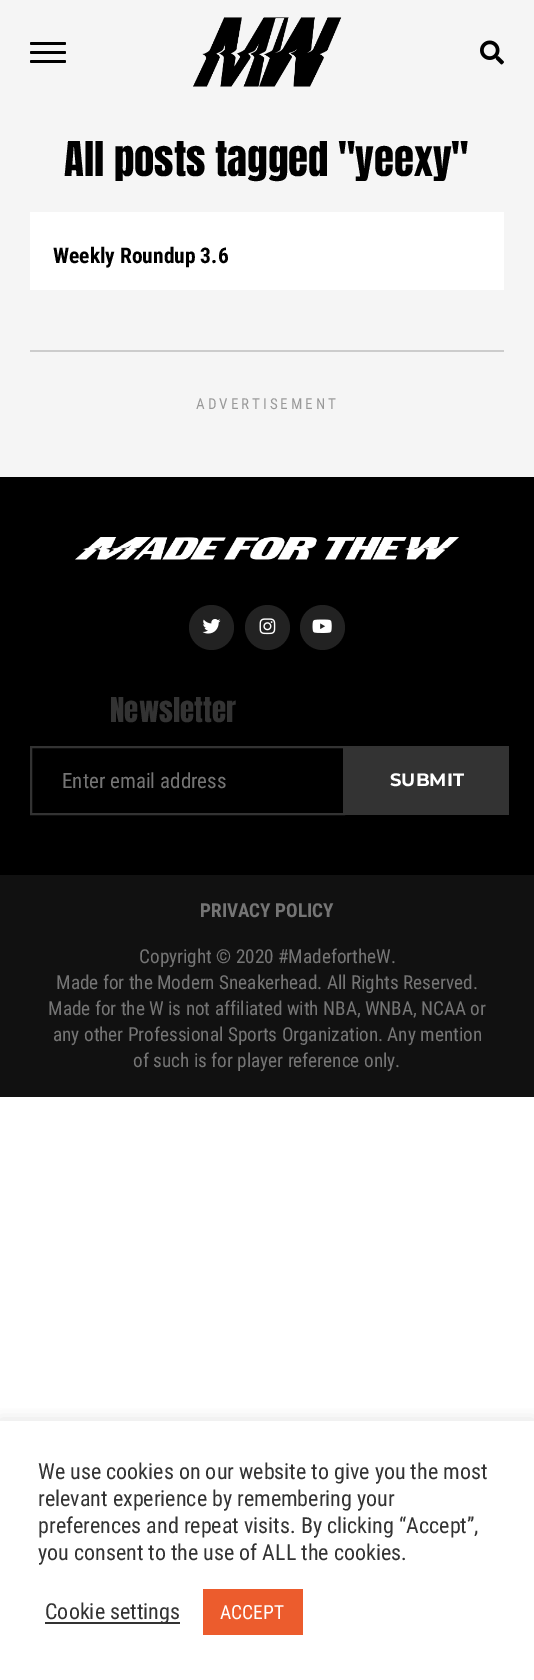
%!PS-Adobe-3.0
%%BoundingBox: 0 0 534 1680
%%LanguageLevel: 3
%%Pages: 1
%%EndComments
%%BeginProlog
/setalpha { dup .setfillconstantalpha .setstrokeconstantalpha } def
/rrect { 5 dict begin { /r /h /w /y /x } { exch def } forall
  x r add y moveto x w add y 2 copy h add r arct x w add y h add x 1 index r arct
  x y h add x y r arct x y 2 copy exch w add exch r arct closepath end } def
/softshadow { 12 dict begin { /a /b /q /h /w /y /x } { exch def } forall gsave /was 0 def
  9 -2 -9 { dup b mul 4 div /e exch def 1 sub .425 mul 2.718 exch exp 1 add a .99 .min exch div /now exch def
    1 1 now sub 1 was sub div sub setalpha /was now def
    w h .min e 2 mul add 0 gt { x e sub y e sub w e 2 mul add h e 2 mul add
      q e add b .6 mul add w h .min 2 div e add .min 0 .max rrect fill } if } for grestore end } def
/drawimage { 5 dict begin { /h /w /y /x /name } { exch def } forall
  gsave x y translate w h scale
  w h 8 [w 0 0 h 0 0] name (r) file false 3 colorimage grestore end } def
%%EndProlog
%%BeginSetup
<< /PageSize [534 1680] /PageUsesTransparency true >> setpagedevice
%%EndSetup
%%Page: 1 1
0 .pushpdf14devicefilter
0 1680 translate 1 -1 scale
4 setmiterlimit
1 setgray
0 0 534 1680 rectfill
0.961 setgray
0 0 534 477 rectfill
0 setgray
30 42 36 3 1.5 rrect fill
30 51 36 3 1.5 rrect fill
30 60 36 3 1.5 rrect fill
(images/1.raw) 193 17 149 70 drawimage
(images/2.raw) 480 40 24 25 drawimage
1 setgray
30 212 474 78 rectfill
0.8 setgray
30 350 474 2 rectfill
0 setgray
0 477 534 398 rectfill
(images/3.raw) 75 537 384 23 drawimage
0.133 setgray
newpath 211.5 627.5 22.5 0 360 arc closepath fill
(images/4.raw) 202 619 19 15 drawimage
newpath 267.5 627.5 22.5 0 360 arc closepath fill
(images/5.raw) 259 618 17 17 drawimage
newpath 322.5 627.5 22.5 0 360 arc closepath fill
(images/6.raw) 312 619 20 14 drawimage
0.2 setgray
2 setlinewidth
31 747 313 67 rectstroke
345 746 164 69 rectfill
0.067 setgray
0 875 534 222 rectfill
gsave
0 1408 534 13 rectclip
0.675 0.671 0.671 setrgbcolor
0 1419 534 260 0 7.5 0.3 softshadow
grestore
0.2 setgray
45 1622 135 2 rectfill
0.925 0.361 0.176 setrgbcolor
203 1589 100 46 rectfill
/Anton-Regular [40.75 0 0 -40.75 0 0] selectfont
0 setgray
64 176 moveto (All posts tagged "yeexy") show
/RobotoCondensed-Bold [21.5 0 0 -21.5 0 0] selectfont
53 263 moveto (Weekly Roundup 3.6) show
/RobotoCondensed-Regular [15 0 0 -15 0 0] selectfont
0.6 setgray
196 409 moveto 3 0 (ADVERTISEMENT) ashow
/Anton-Regular [29 0 0 -29 0 0] selectfont
0.2 setgray
110 722 moveto (Newsletter) show
/RobotoCondensed-Regular [21 0 0 -21 0 0] selectfont
0.459 setgray
62 788 moveto (Enter email address) show
/Montserrat-Bold [18 0 0 -18 0 0] selectfont
1 setgray
390 786 moveto (SUBMIT) show
/RobotoCondensed-Bold [19.2 0 0 -19.2 0 0] selectfont
0.459 setgray
200 917 moveto (PRIVACY POLICY) show
/RobotoCondensed-Regular [19.2 0 0 -19.2 0 0] selectfont
139 963 moveto (Copyright © 2020 #MadefortheW.) show
56 989 moveto (Made for the Modern Sneakerhead. All Rights Reserved.) show
48 1015 moveto (Made for the W is not affiliated with NBA, WNBA, NCAA or) show
53 1041 moveto (any other Professional Sports Organization. Any mention) show
133 1067 moveto (of such is for player reference only.) show
/RobotoCondensed-Regular [22 0 0 -22 0 0] selectfont
0.2 setgray
38 1479 moveto (We use cookies on our website to give you the most) show
38 1506 moveto (relevant experience by remembering your) show
38 1533 moveto (preferences and repeat visits. By clicking “Accept”,) show
38 1560 moveto (you consent to the use of ALL the cookies.) show
45 1619 moveto (Cookie settings) show
/RobotoCondensed-Regular [19.5 0 0 -19.5 0 0] selectfont
1 setgray
220 1619 moveto (ACCEPT) show
.poppdf14devicefilter showpage
%%EOF
